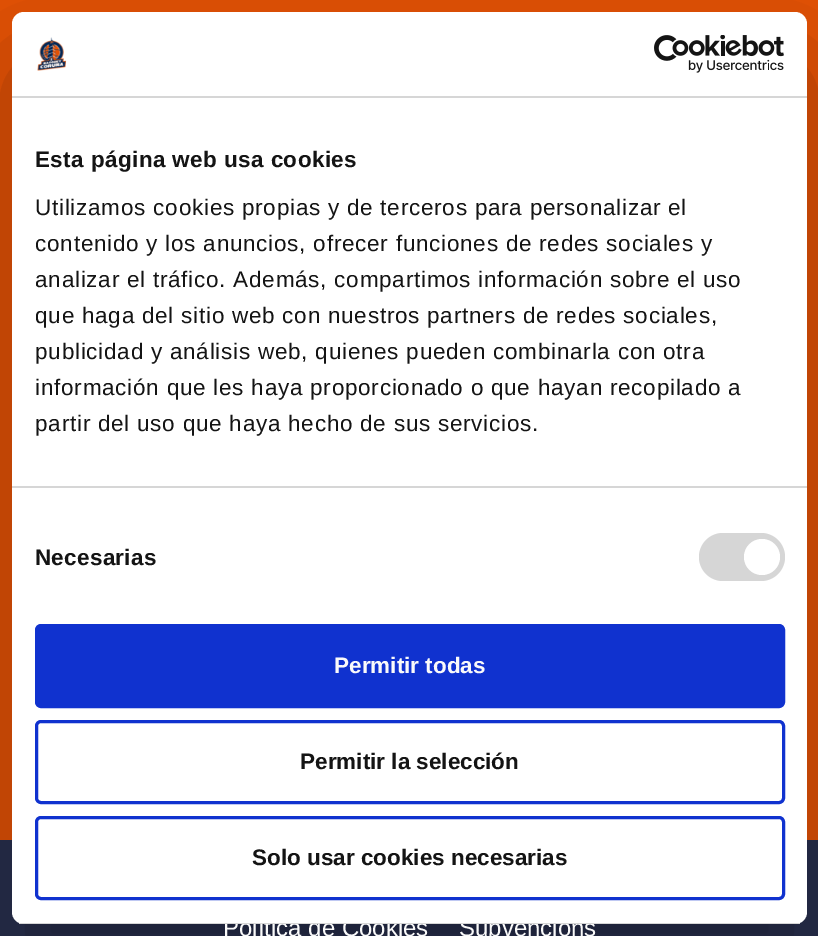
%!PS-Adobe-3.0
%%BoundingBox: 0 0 818 936
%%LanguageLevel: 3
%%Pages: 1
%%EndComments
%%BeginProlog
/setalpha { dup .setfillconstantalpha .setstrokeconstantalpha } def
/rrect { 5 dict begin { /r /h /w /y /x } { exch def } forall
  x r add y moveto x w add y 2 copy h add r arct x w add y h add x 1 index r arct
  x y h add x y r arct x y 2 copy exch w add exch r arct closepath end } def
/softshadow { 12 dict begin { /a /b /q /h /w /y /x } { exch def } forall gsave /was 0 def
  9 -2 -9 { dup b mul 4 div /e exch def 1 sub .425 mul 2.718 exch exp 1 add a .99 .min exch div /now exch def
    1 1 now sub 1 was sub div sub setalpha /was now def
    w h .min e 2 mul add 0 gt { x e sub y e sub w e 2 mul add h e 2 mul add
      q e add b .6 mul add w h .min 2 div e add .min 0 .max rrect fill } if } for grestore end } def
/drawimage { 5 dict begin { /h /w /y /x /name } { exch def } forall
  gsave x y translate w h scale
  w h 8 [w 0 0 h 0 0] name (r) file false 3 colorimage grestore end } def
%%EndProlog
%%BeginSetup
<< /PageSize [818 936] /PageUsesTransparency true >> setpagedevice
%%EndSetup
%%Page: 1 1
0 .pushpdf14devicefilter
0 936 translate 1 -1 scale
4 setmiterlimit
0.89 0.322 0.02 setrgbcolor
0 0 818 936 rectfill
0.153 0.184 0.306 setrgbcolor
0 840 818 96 rectfill
0 setgray
12 60 795 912 12 51 0.3 softshadow
/LiberationSans-Regular [24 0 0 -24 0 0] selectfont
0.98 setgray
223 936 moveto (Política de Cookies) show
459 936 moveto (Subvencions) show
1 setgray
12 12 795 912 12 rrect fill
0.063 0.196 0.812 setrgbcolor
3 setlinewidth
36.5 817.5 747 81 4.5 rrect stroke
/LiberationSans-Bold [22.5 0 0 -22.5 0 0] selectfont
0.078 setgray
252 865 moveto (Solo usar cookies necesarias) show
0.063 0.196 0.812 setrgbcolor
36.5 721.5 747 81 4.5 rrect stroke
0.078 setgray
300 769 moveto (Permitir la selección) show
0.063 0.196 0.812 setrgbcolor
36.5 625.5 747 81 4.5 rrect gsave fill grestore
stroke
0.98 setgray
334 673 moveto (Permitir todas) show
gsave
12 12 795 912 12 rrect clip newpath
0.839 setgray
12 923 795 1 rectfill
grestore
0.839 setgray
699 533 86 48 24 rrect fill
1 setgray
newpath 762 557 18 0 360 arc closepath fill
/LiberationSans-Regular [22.5 0 0 -22.5 0 0] selectfont
0.078 setgray
35 431 moveto 0.75 0 (partir del uso que haya hecho de sus servicios.) ashow
35 395 moveto 0.75 0 (información que les haya proporcionado o que hayan recopilado a) ashow
35 359 moveto 0.75 0 (publicidad y análisis web, quienes pueden combinarla con otra) ashow
35 323 moveto 0.75 0 (que haga del sitio web con nuestros partners de redes sociales,) ashow
35 287 moveto 0.75 0 (analizar el tráfico. Además, compartimos información sobre el uso) ashow
35 251 moveto 0.75 0 (contenido y los anuncios, ofrecer funciones de redes sociales y) ashow
35 215 moveto 0.75 0 (Utilizamos cookies propias y de terceros para personalizar el) ashow
/LiberationSans-Bold [22.5 0 0 -22.5 0 0] selectfont
35 167 moveto 0.4 0 (Esta página web usa cookies) ashow
0.839 setgray
12 486 795 2 rectfill
0.078 setgray
35 565 moveto 0.25 0 (Necesarias) ashow
(images/2.raw) 654 35 130 38 drawimage
(images/1.raw) 37 37 30 34 drawimage
0.839 setgray
12 96 795 2 rectfill
.poppdf14devicefilter showpage
%%EOF
